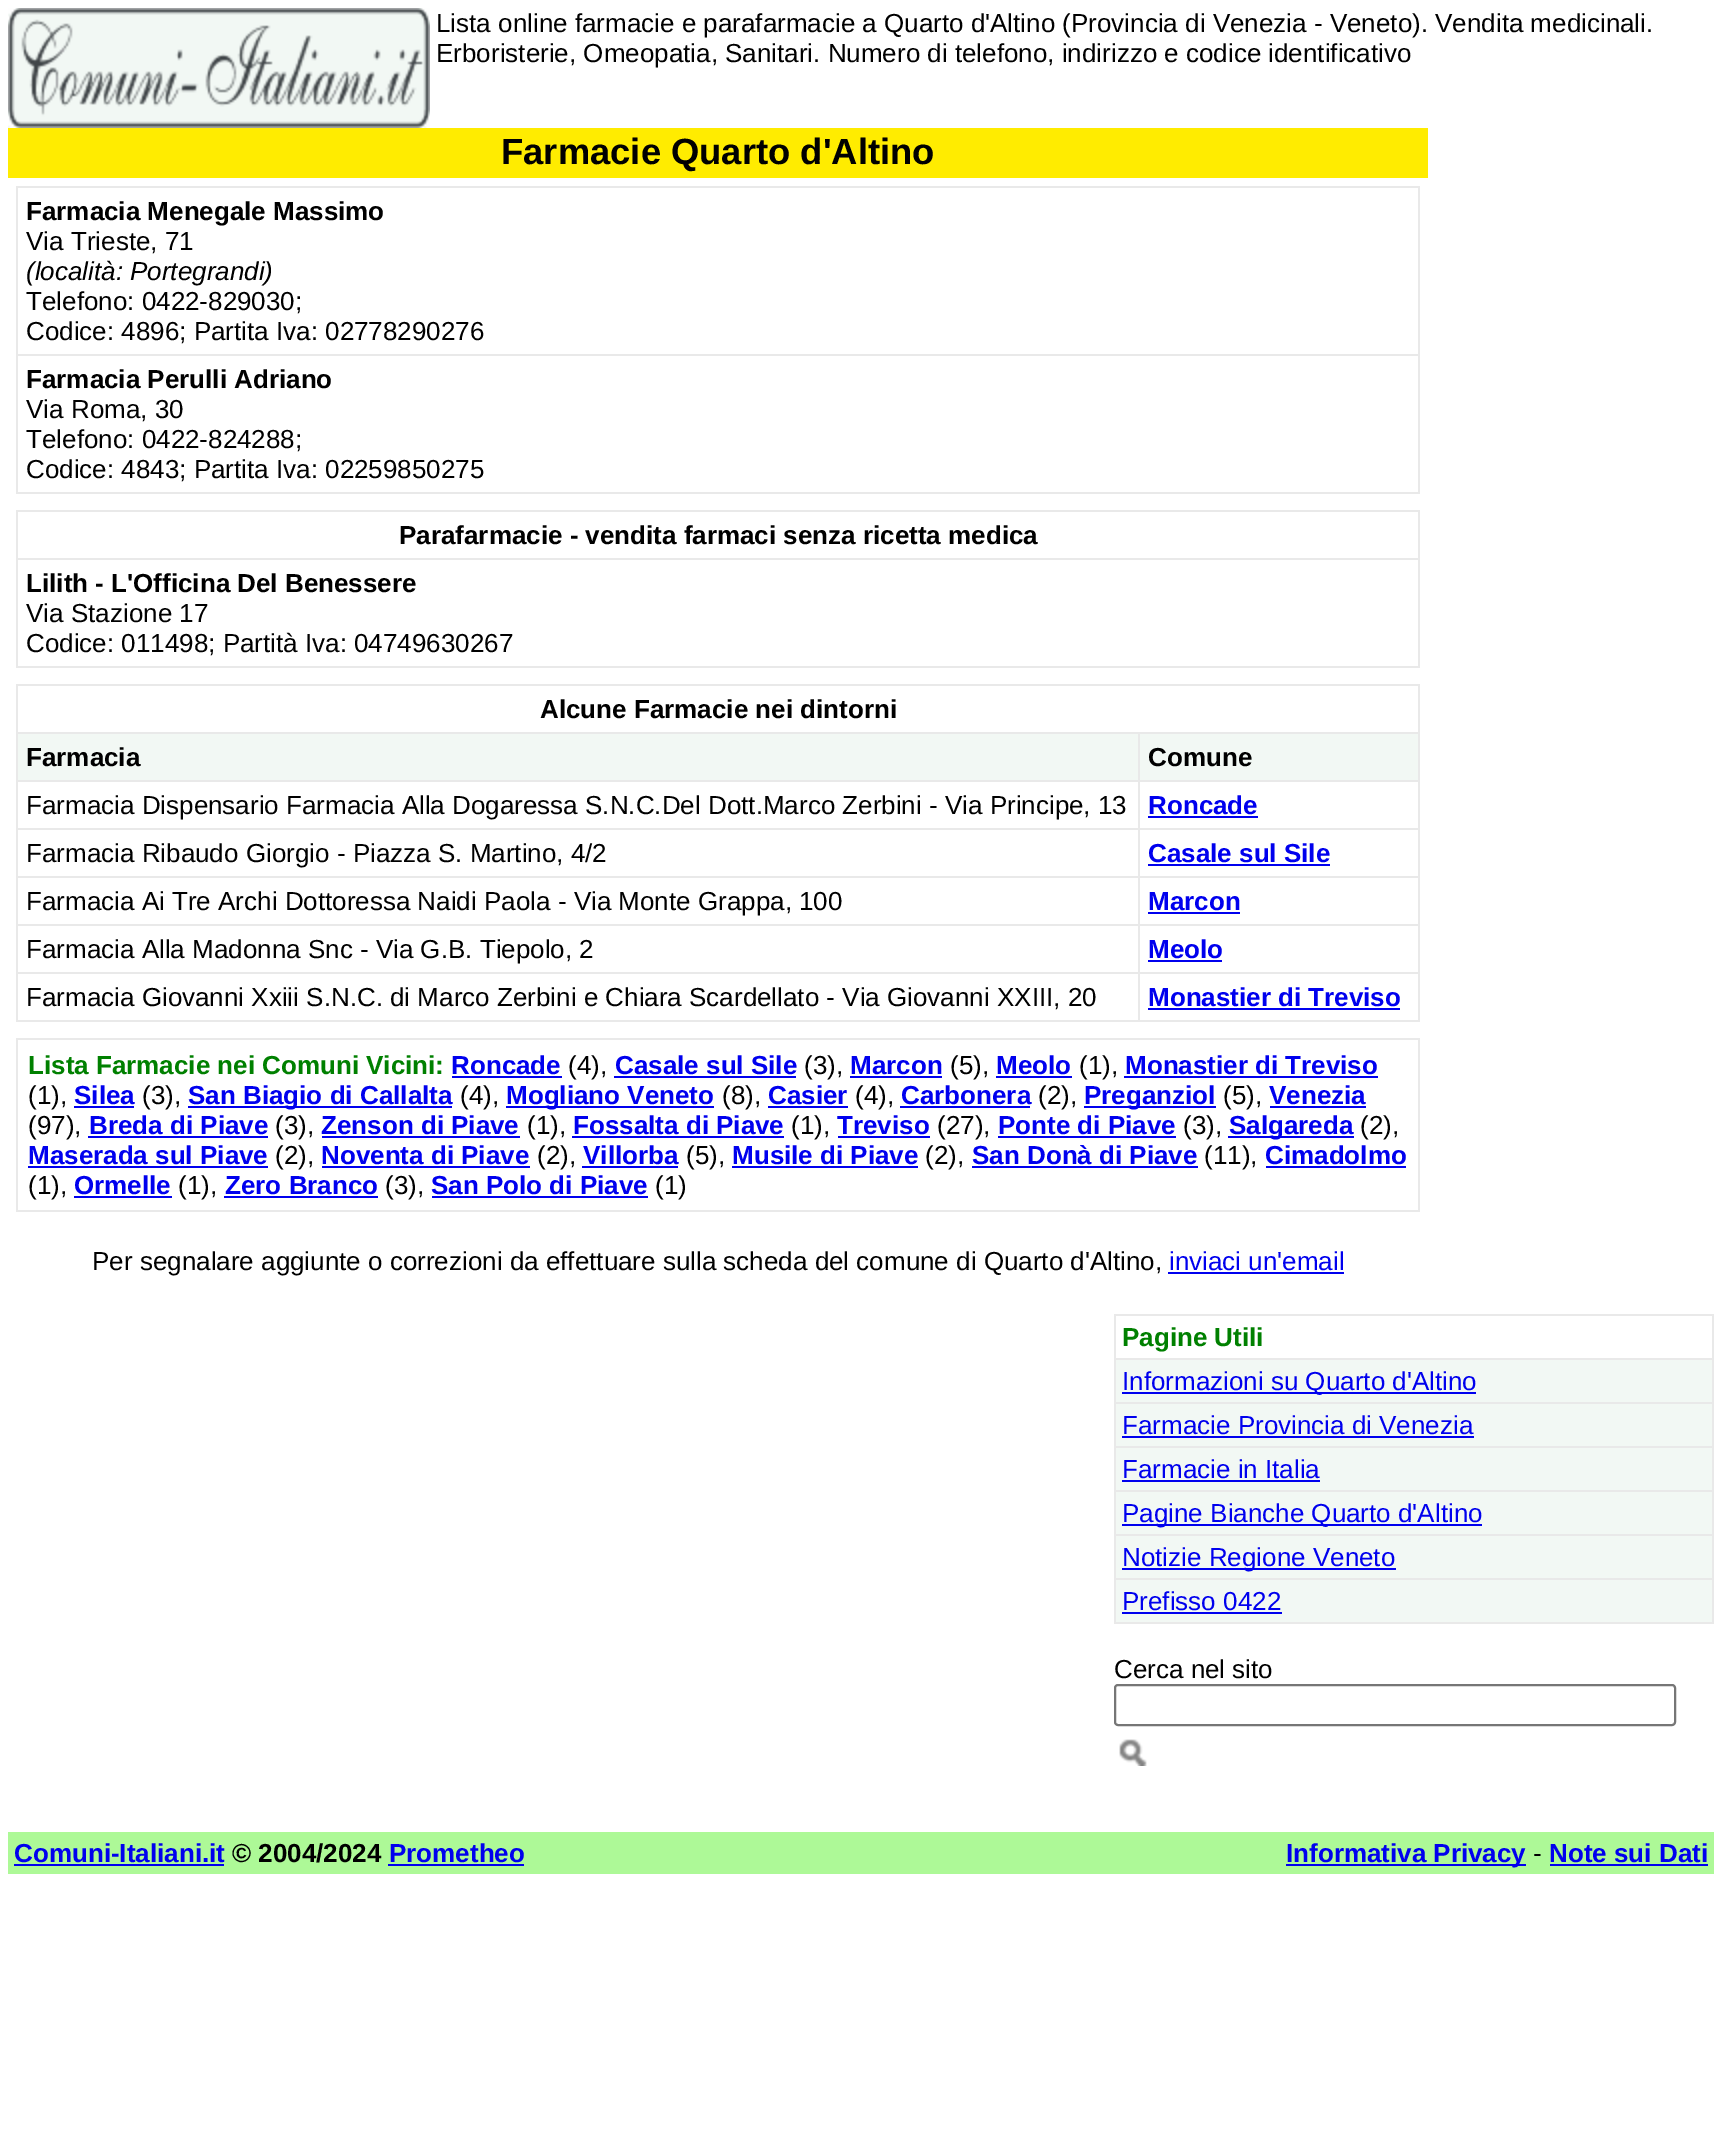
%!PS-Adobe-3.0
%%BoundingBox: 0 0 1722 2137
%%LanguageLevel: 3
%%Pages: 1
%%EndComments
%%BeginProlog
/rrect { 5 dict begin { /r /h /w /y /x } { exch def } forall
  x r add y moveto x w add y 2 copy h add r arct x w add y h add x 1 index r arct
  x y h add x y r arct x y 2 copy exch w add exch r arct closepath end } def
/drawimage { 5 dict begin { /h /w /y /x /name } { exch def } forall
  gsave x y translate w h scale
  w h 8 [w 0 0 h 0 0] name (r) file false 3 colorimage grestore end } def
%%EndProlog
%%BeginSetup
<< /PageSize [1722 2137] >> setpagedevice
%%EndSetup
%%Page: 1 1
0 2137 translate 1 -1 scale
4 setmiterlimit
1 setgray
0 0 1722 2137 rectfill
(images/1.raw) 8 8 422 120 drawimage
1 0.925 0 setrgbcolor
8 128 1420 50 rectfill
0.914 setgray
16 186 1404 2 rectfill
1418 186 2 308 rectfill
16 492 1404 2 rectfill
16 186 2 308 rectfill
16 354 1404 2 rectfill
16 510 1404 2 rectfill
1418 510 2 158 rectfill
16 666 1404 2 rectfill
16 510 2 158 rectfill
16 558 1404 2 rectfill
16 684 1404 2 rectfill
1418 684 2 338 rectfill
16 1020 1404 2 rectfill
16 684 2 338 rectfill
0.949 0.973 0.957 setrgbcolor
18 734 1120 46 rectfill
0.914 setgray
1138 732 282 2 rectfill
1138 780 282 2 rectfill
1138 828 282 2 rectfill
1138 876 282 2 rectfill
1138 924 282 2 rectfill
1138 972 282 2 rectfill
1138 972 2 50 rectfill
16 972 1124 2 rectfill
1138 924 2 50 rectfill
16 924 1124 2 rectfill
1138 876 2 50 rectfill
16 876 1124 2 rectfill
1138 828 2 50 rectfill
16 828 1124 2 rectfill
1138 780 2 50 rectfill
16 780 1124 2 rectfill
1138 732 2 50 rectfill
16 732 1124 2 rectfill
0.949 0.973 0.957 setrgbcolor
1140 734 278 46 rectfill
0 0 0.933 setrgbcolor
1148 816 110 2 rectfill
1148 864 182 2 rectfill
1148 912 92 2 rectfill
1148 960 74 2 rectfill
1148 1008 252 2 rectfill
0.914 setgray
16 1038 1404 2 rectfill
1418 1038 2 174 rectfill
16 1210 1404 2 rectfill
16 1038 2 174 rectfill
0 0 0.933 setrgbcolor
452 1076 110 2 rectfill
614 1076 182 2 rectfill
850 1076 92 2 rectfill
996 1076 76 2 rectfill
1124 1076 254 2 rectfill
74 1106 60 2 rectfill
188 1106 264 2 rectfill
506 1106 208 2 rectfill
768 1106 80 2 rectfill
900 1106 130 2 rectfill
1084 1106 132 2 rectfill
1270 1106 96 2 rectfill
88 1136 180 2 rectfill
322 1136 198 2 rectfill
572 1136 212 2 rectfill
838 1136 92 2 rectfill
998 1136 178 2 rectfill
1228 1136 126 2 rectfill
28 1166 240 2 rectfill
322 1166 208 2 rectfill
582 1166 96 2 rectfill
732 1166 186 2 rectfill
972 1166 226 2 rectfill
1266 1166 140 2 rectfill
74 1196 98 2 rectfill
224 1196 154 2 rectfill
432 1196 216 2 rectfill
1168 1272 176 2 rectfill
0.949 0.973 0.957 setrgbcolor
1116 1360 596 262 rectfill
0.914 setgray
1114 1314 600 2 rectfill
1712 1314 2 310 rectfill
1114 1622 600 2 rectfill
1114 1314 2 310 rectfill
1114 1358 600 2 rectfill
0 0 0.933 setrgbcolor
1122 1392 354 2 rectfill
0.914 setgray
1114 1402 600 2 rectfill
0 0 0.933 setrgbcolor
1122 1436 352 2 rectfill
0.914 setgray
1114 1446 600 2 rectfill
0 0 0.933 setrgbcolor
1122 1480 198 2 rectfill
0.914 setgray
1114 1490 600 2 rectfill
0 0 0.933 setrgbcolor
1122 1524 360 2 rectfill
0.914 setgray
1114 1534 600 2 rectfill
0 0 0.933 setrgbcolor
1122 1568 274 2 rectfill
0.914 setgray
1114 1578 600 2 rectfill
0 0 0.933 setrgbcolor
1122 1612 160 2 rectfill
0.463 setgray
2 setlinewidth
1115 1685 560 40 3 rrect stroke
(images/2.raw) 1119 1739 28 27 drawimage
0.678 0.976 0.592 setrgbcolor
8 1832 1706 42 rectfill
0 0 0.933 setrgbcolor
14 1864 210 2 rectfill
388 1864 136 2 rectfill
1286 1864 240 2 rectfill
1550 1864 158 2 rectfill
/LiberationSans-Regular [26 0 0 -26 0 0] selectfont
0 setgray
436 32 moveto (Lista online farmacie e parafarmacie a Quarto d'Altino \(Provincia di Venezia - Veneto\). Vendita medicinali.) show
436 62 moveto (Erboristerie, Omeopatia, Sanitari. Numero di telefono, indirizzo e codice identificativo) show
/LiberationSans-Bold [36.4 0 0 -36.4 0 0] selectfont
501 164 moveto (Farmacie Quarto d'Altino) show
/LiberationSans-Bold [26 0 0 -26 0 0] selectfont
26 220 moveto (Farmacia Menegale Massimo) show
/LiberationSans-Regular [26 0 0 -26 0 0] selectfont
26 250 moveto (Via Trieste, 71) show
/LiberationSans-Italic [26 0 0 -26 0 0] selectfont
26 280 moveto (\(località: Portegrandi\)) show
/LiberationSans-Regular [26 0 0 -26 0 0] selectfont
26 310 moveto (Telefono: 0422-829030;) show
26 340 moveto (Codice: 4896; Partita Iva: 02778290276) show
/LiberationSans-Bold [26 0 0 -26 0 0] selectfont
26 388 moveto (Farmacia Perulli Adriano) show
/LiberationSans-Regular [26 0 0 -26 0 0] selectfont
26 418 moveto (Via Roma, 30) show
26 448 moveto (Telefono: 0422-824288;) show
26 478 moveto (Codice: 4843; Partita Iva: 02259850275) show
/LiberationSans-Bold [26 0 0 -26 0 0] selectfont
399 544 moveto (Parafarmacie - vendita farmaci senza ricetta medica) show
26 592 moveto (Lilith - L'Officina Del Benessere) show
/LiberationSans-Regular [26 0 0 -26 0 0] selectfont
26 622 moveto (Via Stazione 17) show
26 652 moveto (Codice: 011498; Partità Iva: 04749630267) show
/LiberationSans-Bold [26 0 0 -26 0 0] selectfont
540 718 moveto (Alcune Farmacie nei dintorni) show
26 766 moveto (Farmacia) show
1148 766 moveto (Comune) show
/LiberationSans-Regular [26 0 0 -26 0 0] selectfont
26 814 moveto (Farmacia Dispensario Farmacia Alla Dogaressa S.N.C.Del Dott.Marco Zerbini - Via Principe, 13) show
/LiberationSans-Bold [26 0 0 -26 0 0] selectfont
0 0 0.933 setrgbcolor
1148 814 moveto (Roncade) show
/LiberationSans-Regular [26 0 0 -26 0 0] selectfont
0 setgray
26 862 moveto (Farmacia Ribaudo Giorgio - Piazza S. Martino, 4/2) show
/LiberationSans-Bold [26 0 0 -26 0 0] selectfont
0 0 0.933 setrgbcolor
1148 862 moveto (Casale sul Sile) show
/LiberationSans-Regular [26 0 0 -26 0 0] selectfont
0 setgray
26 910 moveto (Farmacia Ai Tre Archi Dottoressa Naidi Paola - Via Monte Grappa, 100) show
/LiberationSans-Bold [26 0 0 -26 0 0] selectfont
0 0 0.933 setrgbcolor
1148 910 moveto (Marcon) show
/LiberationSans-Regular [26 0 0 -26 0 0] selectfont
0 setgray
26 958 moveto (Farmacia Alla Madonna Snc - Via G.B. Tiepolo, 2) show
/LiberationSans-Bold [26 0 0 -26 0 0] selectfont
0 0 0.933 setrgbcolor
1148 958 moveto (Meolo) show
/LiberationSans-Regular [26 0 0 -26 0 0] selectfont
0 setgray
26 1006 moveto (Farmacia Giovanni Xxiii S.N.C. di Marco Zerbini e Chiara Scardellato - Via Giovanni XXIII, 20) show
/LiberationSans-Bold [26 0 0 -26 0 0] selectfont
0 0 0.933 setrgbcolor
1148 1006 moveto (Monastier di Treviso) show
0 0.502 0 setrgbcolor
28 1074 moveto (Lista Farmacie nei Comuni Vicini:) show
0 0 0.933 setrgbcolor
451 1074 moveto (Roncade) show
/LiberationSans-Regular [26 0 0 -26 0 0] selectfont
0 setgray
568 1074 moveto (\(4\),) show
/LiberationSans-Bold [26 0 0 -26 0 0] selectfont
0 0 0.933 setrgbcolor
615 1074 moveto (Casale sul Sile) show
/LiberationSans-Regular [26 0 0 -26 0 0] selectfont
0 setgray
804 1074 moveto (\(3\),) show
/LiberationSans-Bold [26 0 0 -26 0 0] selectfont
0 0 0.933 setrgbcolor
850 1074 moveto (Marcon) show
/LiberationSans-Regular [26 0 0 -26 0 0] selectfont
0 setgray
950 1074 moveto (\(5\),) show
/LiberationSans-Bold [26 0 0 -26 0 0] selectfont
0 0 0.933 setrgbcolor
996 1074 moveto (Meolo) show
/LiberationSans-Regular [26 0 0 -26 0 0] selectfont
0 setgray
1079 1074 moveto (\(1\),) show
/LiberationSans-Bold [26 0 0 -26 0 0] selectfont
0 0 0.933 setrgbcolor
1125 1074 moveto (Monastier di Treviso) show
/LiberationSans-Regular [26 0 0 -26 0 0] selectfont
0 setgray
28 1104 moveto (\(1\),) show
/LiberationSans-Bold [26 0 0 -26 0 0] selectfont
0 0 0.933 setrgbcolor
74 1104 moveto (Silea) show
/LiberationSans-Regular [26 0 0 -26 0 0] selectfont
0 setgray
142 1104 moveto (\(3\),) show
/LiberationSans-Bold [26 0 0 -26 0 0] selectfont
0 0 0.933 setrgbcolor
188 1104 moveto (San Biagio di Callalta) show
/LiberationSans-Regular [26 0 0 -26 0 0] selectfont
0 setgray
460 1104 moveto (\(4\),) show
/LiberationSans-Bold [26 0 0 -26 0 0] selectfont
0 0 0.933 setrgbcolor
506 1104 moveto (Mogliano Veneto) show
/LiberationSans-Regular [26 0 0 -26 0 0] selectfont
0 setgray
722 1104 moveto (\(8\),) show
/LiberationSans-Bold [26 0 0 -26 0 0] selectfont
0 0 0.933 setrgbcolor
768 1104 moveto (Casier) show
/LiberationSans-Regular [26 0 0 -26 0 0] selectfont
0 setgray
855 1104 moveto (\(4\),) show
/LiberationSans-Bold [26 0 0 -26 0 0] selectfont
0 0 0.933 setrgbcolor
901 1104 moveto (Carbonera) show
/LiberationSans-Regular [26 0 0 -26 0 0] selectfont
0 setgray
1038 1104 moveto (\(2\),) show
/LiberationSans-Bold [26 0 0 -26 0 0] selectfont
0 0 0.933 setrgbcolor
1084 1104 moveto (Preganziol) show
/LiberationSans-Regular [26 0 0 -26 0 0] selectfont
0 setgray
1223 1104 moveto (\(5\),) show
/LiberationSans-Bold [26 0 0 -26 0 0] selectfont
0 0 0.933 setrgbcolor
1269 1104 moveto (Venezia) show
/LiberationSans-Regular [26 0 0 -26 0 0] selectfont
0 setgray
28 1134 moveto (\(97\),) show
/LiberationSans-Bold [26 0 0 -26 0 0] selectfont
0 0 0.933 setrgbcolor
89 1134 moveto (Breda di Piave) show
/LiberationSans-Regular [26 0 0 -26 0 0] selectfont
0 setgray
275 1134 moveto (\(3\),) show
/LiberationSans-Bold [26 0 0 -26 0 0] selectfont
0 0 0.933 setrgbcolor
321 1134 moveto (Zenson di Piave) show
/LiberationSans-Regular [26 0 0 -26 0 0] selectfont
0 setgray
527 1134 moveto (\(1\),) show
/LiberationSans-Bold [26 0 0 -26 0 0] selectfont
0 0 0.933 setrgbcolor
573 1134 moveto (Fossalta di Piave) show
/LiberationSans-Regular [26 0 0 -26 0 0] selectfont
0 setgray
791 1134 moveto (\(1\),) show
/LiberationSans-Bold [26 0 0 -26 0 0] selectfont
0 0 0.933 setrgbcolor
837 1134 moveto (Treviso) show
/LiberationSans-Regular [26 0 0 -26 0 0] selectfont
0 setgray
937 1134 moveto (\(27\),) show
/LiberationSans-Bold [26 0 0 -26 0 0] selectfont
0 0 0.933 setrgbcolor
998 1134 moveto (Ponte di Piave) show
/LiberationSans-Regular [26 0 0 -26 0 0] selectfont
0 setgray
1183 1134 moveto (\(3\),) show
/LiberationSans-Bold [26 0 0 -26 0 0] selectfont
0 0 0.933 setrgbcolor
1229 1134 moveto (Salgareda) show
/LiberationSans-Regular [26 0 0 -26 0 0] selectfont
0 setgray
1360 1134 moveto (\(2\),) show
/LiberationSans-Bold [26 0 0 -26 0 0] selectfont
0 0 0.933 setrgbcolor
28 1164 moveto (Maserada sul Piave) show
/LiberationSans-Regular [26 0 0 -26 0 0] selectfont
0 setgray
275 1164 moveto (\(2\),) show
/LiberationSans-Bold [26 0 0 -26 0 0] selectfont
0 0 0.933 setrgbcolor
321 1164 moveto (Noventa di Piave) show
/LiberationSans-Regular [26 0 0 -26 0 0] selectfont
0 setgray
537 1164 moveto (\(2\),) show
/LiberationSans-Bold [26 0 0 -26 0 0] selectfont
0 0 0.933 setrgbcolor
583 1164 moveto (Villorba) show
/LiberationSans-Regular [26 0 0 -26 0 0] selectfont
0 setgray
686 1164 moveto (\(5\),) show
/LiberationSans-Bold [26 0 0 -26 0 0] selectfont
0 0 0.933 setrgbcolor
732 1164 moveto (Musile di Piave) show
/LiberationSans-Regular [26 0 0 -26 0 0] selectfont
0 setgray
925 1164 moveto (\(2\),) show
/LiberationSans-Bold [26 0 0 -26 0 0] selectfont
0 0 0.933 setrgbcolor
972 1164 moveto (San Donà di Piave) show
/LiberationSans-Regular [26 0 0 -26 0 0] selectfont
0 setgray
1204 1164 moveto (\(11\),) show
/LiberationSans-Bold [26 0 0 -26 0 0] selectfont
0 0 0.933 setrgbcolor
1265 1164 moveto (Cimadolmo) show
/LiberationSans-Regular [26 0 0 -26 0 0] selectfont
0 setgray
28 1194 moveto (\(1\),) show
/LiberationSans-Bold [26 0 0 -26 0 0] selectfont
0 0 0.933 setrgbcolor
74 1194 moveto (Ormelle) show
/LiberationSans-Regular [26 0 0 -26 0 0] selectfont
0 setgray
178 1194 moveto (\(1\),) show
/LiberationSans-Bold [26 0 0 -26 0 0] selectfont
0 0 0.933 setrgbcolor
225 1194 moveto (Zero Branco) show
/LiberationSans-Regular [26 0 0 -26 0 0] selectfont
0 setgray
385 1194 moveto (\(3\),) show
/LiberationSans-Bold [26 0 0 -26 0 0] selectfont
0 0 0.933 setrgbcolor
431 1194 moveto (San Polo di Piave) show
/LiberationSans-Regular [26 0 0 -26 0 0] selectfont
0 setgray
655 1194 moveto (\(1\)) show
92 1270 moveto (Per segnalare aggiunte o correzioni da effettuare sulla scheda del comune di Quarto d'Altino,) show
0 0 0.933 setrgbcolor
1169 1270 moveto (inviaci un'email) show
/LiberationSans-Bold [26 0 0 -26 0 0] selectfont
0 0.502 0 setrgbcolor
1122 1346 moveto (Pagine Utili) show
/LiberationSans-Regular [26 0 0 -26 0 0] selectfont
0 0 0.933 setrgbcolor
1122 1390 moveto (Informazioni su Quarto d'Altino) show
1122 1434 moveto (Farmacie Provincia di Venezia) show
1122 1478 moveto (Farmacie in Italia) show
1122 1522 moveto (Pagine Bianche Quarto d'Altino) show
1122 1566 moveto (Notizie Regione Veneto) show
1122 1610 moveto (Prefisso 0422) show
0 setgray
1114 1678 moveto (Cerca nel sito) show
/LiberationSans-Bold [26 0 0 -26 0 0] selectfont
0 0 0.933 setrgbcolor
14 1862 moveto (Comuni-Italiani.it) show
0 setgray
232 1862 moveto (© 2004/2024) show
0 0 0.933 setrgbcolor
389 1862 moveto (Prometheo) show
1286 1862 moveto (Informativa Privacy) show
/LiberationSans-Regular [26 0 0 -26 0 0] selectfont
0 setgray
1533 1862 moveto (-) show
/LiberationSans-Bold [26 0 0 -26 0 0] selectfont
0 0 0.933 setrgbcolor
1549 1862 moveto (Note sui Dati) show
showpage
%%EOF
